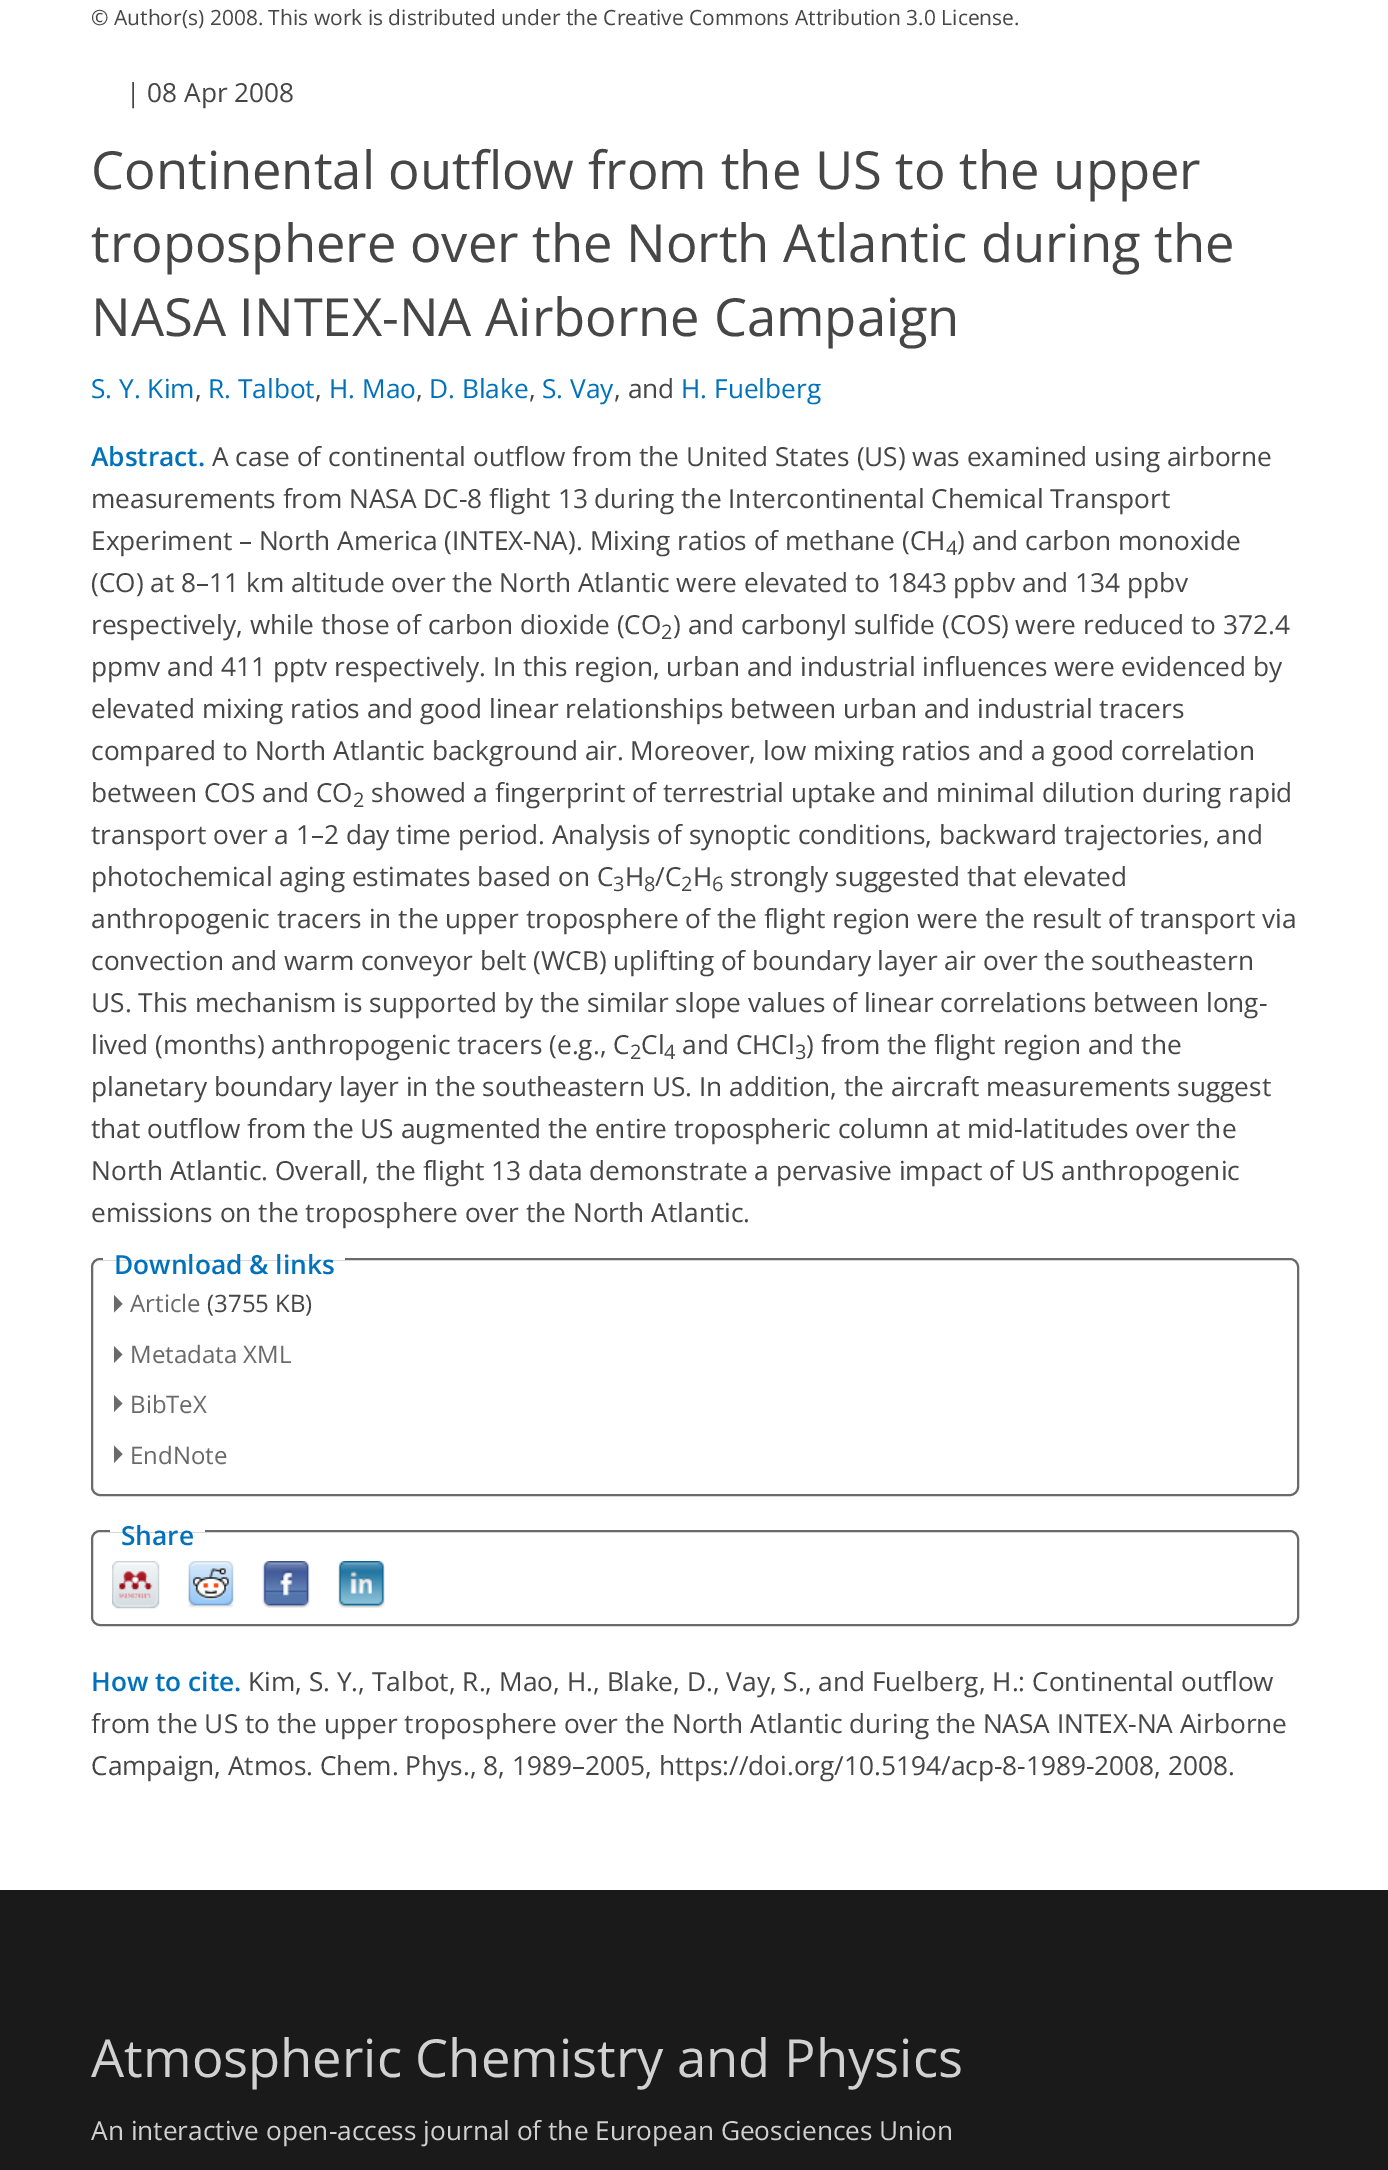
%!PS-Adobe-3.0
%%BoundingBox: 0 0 1388 2170
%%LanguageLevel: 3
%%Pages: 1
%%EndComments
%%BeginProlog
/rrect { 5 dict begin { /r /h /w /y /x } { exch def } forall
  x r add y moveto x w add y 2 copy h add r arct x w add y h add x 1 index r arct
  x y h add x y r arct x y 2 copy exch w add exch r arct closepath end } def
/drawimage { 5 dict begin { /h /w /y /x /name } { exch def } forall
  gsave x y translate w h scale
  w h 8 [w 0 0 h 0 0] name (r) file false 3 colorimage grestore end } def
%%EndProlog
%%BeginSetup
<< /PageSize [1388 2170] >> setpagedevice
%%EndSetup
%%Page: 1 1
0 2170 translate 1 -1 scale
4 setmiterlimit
1 setgray
0 0 1388 2170 rectfill
0.416 setgray
2 setlinewidth
92 1259 1206 236 8 rrect stroke
1 setgray
103 1258 242 2 rectfill
0.416 setgray
newpath 114 1312.5 moveto 114 1295 lineto 122.5 1304 lineto closepath fill
newpath 114 1363 moveto 114 1346 lineto 122.5 1354.5 lineto closepath fill
newpath 114 1412 moveto 114 1395 lineto 122.5 1403.5 lineto closepath fill
newpath 114 1463 moveto 114 1445.5 lineto 122.5 1454 lineto closepath fill
92 1531 1206 94 8 rrect stroke
1 setgray
110 1530 95 2 rectfill
(images/1.raw) 112 1561 48 48 drawimage
(images/2.raw) 188 1561 46 47 drawimage
(images/3.raw) 262 1561 48 47 drawimage
(images/4.raw) 338 1561 47 47 drawimage
0.102 setgray
0 1890 1388 280 rectfill
/OpenSans-Regular [21 0 0 -21 0 0] selectfont
0.275 setgray
91 25 moveto (© Author\(s\) 2008. This work is distributed under the Creative Commons Attribution 3.0 License.) show
/OpenSans-Regular [26.25 0 0 -26.25 0 0] selectfont
126 102 moveto (| 08 Apr 2008) show
/OpenSans-Regular [52.5 0 0 -52.5 0 0] selectfont
91 189 moveto (Continental outflow from the US to the upper) show
91 262 moveto (troposphere over the North Atlantic during the) show
91 336 moveto (NASA INTEX-NA Airborne Campaign) show
/OpenSans-Regular [26.25 0 0 -26.25 0 0] selectfont
0 0.447 0.737 setrgbcolor
91 398 moveto (S. Y. Kim) show
0.275 setgray
195 398 moveto (,) show
0 0.447 0.737 setrgbcolor
208 398 moveto (R. Talbot) show
0.275 setgray
315 398 moveto (,) show
0 0.447 0.737 setrgbcolor
329 398 moveto (H. Mao) show
0.275 setgray
416 398 moveto (,) show
0 0.447 0.737 setrgbcolor
429 398 moveto (D. Blake) show
0.275 setgray
529 398 moveto (,) show
0 0.447 0.737 setrgbcolor
542 398 moveto (S. Vay) show
0.275 setgray
614 398 moveto (, and) show
0 0.447 0.737 setrgbcolor
681 398 moveto (H. Fuelberg) show
/OpenSans-SemiBold [26.25 0 0 -26.25 0 0] selectfont
91 466 moveto (Abstract.) show
/OpenSans-Regular [26.25 0 0 -26.25 0 0] selectfont
0.275 setgray
212 466 moveto (A case of continental outflow from the United States \(US\) was examined using airborne) show
91 508 moveto (measurements from NASA DC-8 flight 13 during the Intercontinental Chemical Transport) show
91 550 moveto (Experiment – North America \(INTEX-NA\). Mixing ratios of methane \(CH) show
/OpenSans-Regular [20 0 0 -20 0 0] selectfont
946 555 moveto (4) show
/OpenSans-Regular [26.25 0 0 -26.25 0 0] selectfont
957 550 moveto (\) and carbon monoxide) show
91 592 moveto (\(CO\) at 8–11 km altitude over the North Atlantic were elevated to 1843 ppbv and 134 ppbv) show
91 634 moveto (respectively, while those of carbon dioxide \(CO) show
/OpenSans-Regular [20 0 0 -20 0 0] selectfont
661 639 moveto (2) show
/OpenSans-Regular [26.25 0 0 -26.25 0 0] selectfont
673 634 moveto (\) and carbonyl sulfide \(COS\) were reduced to 372.4) show
91 676 moveto (ppmv and 411 pptv respectively. In this region, urban and industrial influences were evidenced by) show
91 718 moveto (elevated mixing ratios and good linear relationships between urban and industrial tracers) show
91 760 moveto (compared to North Atlantic background air. Moreover, low mixing ratios and a good correlation) show
91 802 moveto (between COS and CO) show
/OpenSans-Regular [20 0 0 -20 0 0] selectfont
353 807 moveto (2) show
/OpenSans-Regular [26.25 0 0 -26.25 0 0] selectfont
371 802 moveto (showed a fingerprint of terrestrial uptake and minimal dilution during rapid) show
91 844 moveto (transport over a 1–2 day time period. Analysis of synoptic conditions, backward trajectories, and) show
91 886 moveto (photochemical aging estimates based on C) show
/OpenSans-Regular [20 0 0 -20 0 0] selectfont
613 891 moveto (3) show
/OpenSans-Regular [26.25 0 0 -26.25 0 0] selectfont
625 886 moveto (H) show
/OpenSans-Regular [20 0 0 -20 0 0] selectfont
644 891 moveto (8) show
/OpenSans-Regular [26.25 0 0 -26.25 0 0] selectfont
655 886 moveto (/C) show
/OpenSans-Regular [20 0 0 -20 0 0] selectfont
681 891 moveto (2) show
/OpenSans-Regular [26.25 0 0 -26.25 0 0] selectfont
693 886 moveto (H) show
/OpenSans-Regular [20 0 0 -20 0 0] selectfont
712 891 moveto (6) show
/OpenSans-Regular [26.25 0 0 -26.25 0 0] selectfont
730 886 moveto (strongly suggested that elevated) show
91 928 moveto (anthropogenic tracers in the upper troposphere of the flight region were the result of transport via) show
91 970 moveto (convection and warm conveyor belt \(WCB\) uplifting of boundary layer air over the southeastern) show
91 1012 moveto (US. This mechanism is supported by the similar slope values of linear correlations between long-) show
91 1054 moveto (lived \(months\) anthropogenic tracers \(e.g., C) show
/OpenSans-Regular [20 0 0 -20 0 0] selectfont
630 1059 moveto (2) show
/OpenSans-Regular [26.25 0 0 -26.25 0 0] selectfont
641 1054 moveto (Cl) show
/OpenSans-Regular [20 0 0 -20 0 0] selectfont
664 1059 moveto (4) show
/OpenSans-Regular [26.25 0 0 -26.25 0 0] selectfont
682 1054 moveto (and CHCl) show
/OpenSans-Regular [20 0 0 -20 0 0] selectfont
795 1059 moveto (3) show
/OpenSans-Regular [26.25 0 0 -26.25 0 0] selectfont
806 1054 moveto (\) from the flight region and the) show
91 1096 moveto (planetary boundary layer in the southeastern US. In addition, the aircraft measurements suggest) show
91 1138 moveto (that outflow from the US augmented the entire tropospheric column at mid-latitudes over the) show
91 1180 moveto (North Atlantic. Overall, the flight 13 data demonstrate a pervasive impact of US anthropogenic) show
91 1222 moveto (emissions on the troposphere over the North Atlantic.) show
/OpenSans-SemiBold [26.25 0 0 -26.25 0 0] selectfont
0 0.447 0.737 setrgbcolor
114 1274 moveto (Download & links) show
/OpenSans-Regular [24 0 0 -24 0 0] selectfont
0.416 setgray
130 1312 moveto (Article) show
0.275 setgray
207 1312 moveto (\(3755 KB\)) show
0.416 setgray
130 1363 moveto (Metadata XML) show
130 1413 moveto (BibTeX) show
130 1464 moveto (EndNote) show
/OpenSans-SemiBold [26.25 0 0 -26.25 0 0] selectfont
0 0.447 0.737 setrgbcolor
121 1545 moveto (Share) show
91 1691 moveto (How to cite.) show
/OpenSans-Regular [26.25 0 0 -26.25 0 0] selectfont
0.275 setgray
248 1691 moveto (Kim, S. Y., Talbot, R., Mao, H., Blake, D., Vay, S., and Fuelberg, H.: Continental outflow) show
91 1733 moveto (from the US to the upper troposphere over the North Atlantic during the NASA INTEX-NA Airborne) show
91 1775 moveto (Campaign, Atmos. Chem. Phys., 8, 1989–2005, https://doi.org/10.5194/acp-8-1989-2008, 2008.) show
/OpenSans-Regular [52.5 0 0 -52.5 0 0] selectfont
0.82 setgray
91 2077 moveto (Atmospheric Chemistry and Physics) show
/OpenSans-Regular [26.25 0 0 -26.25 0 0] selectfont
91 2140 moveto (An interactive open-access journal of the European Geosciences Union) show
showpage
%%EOF
